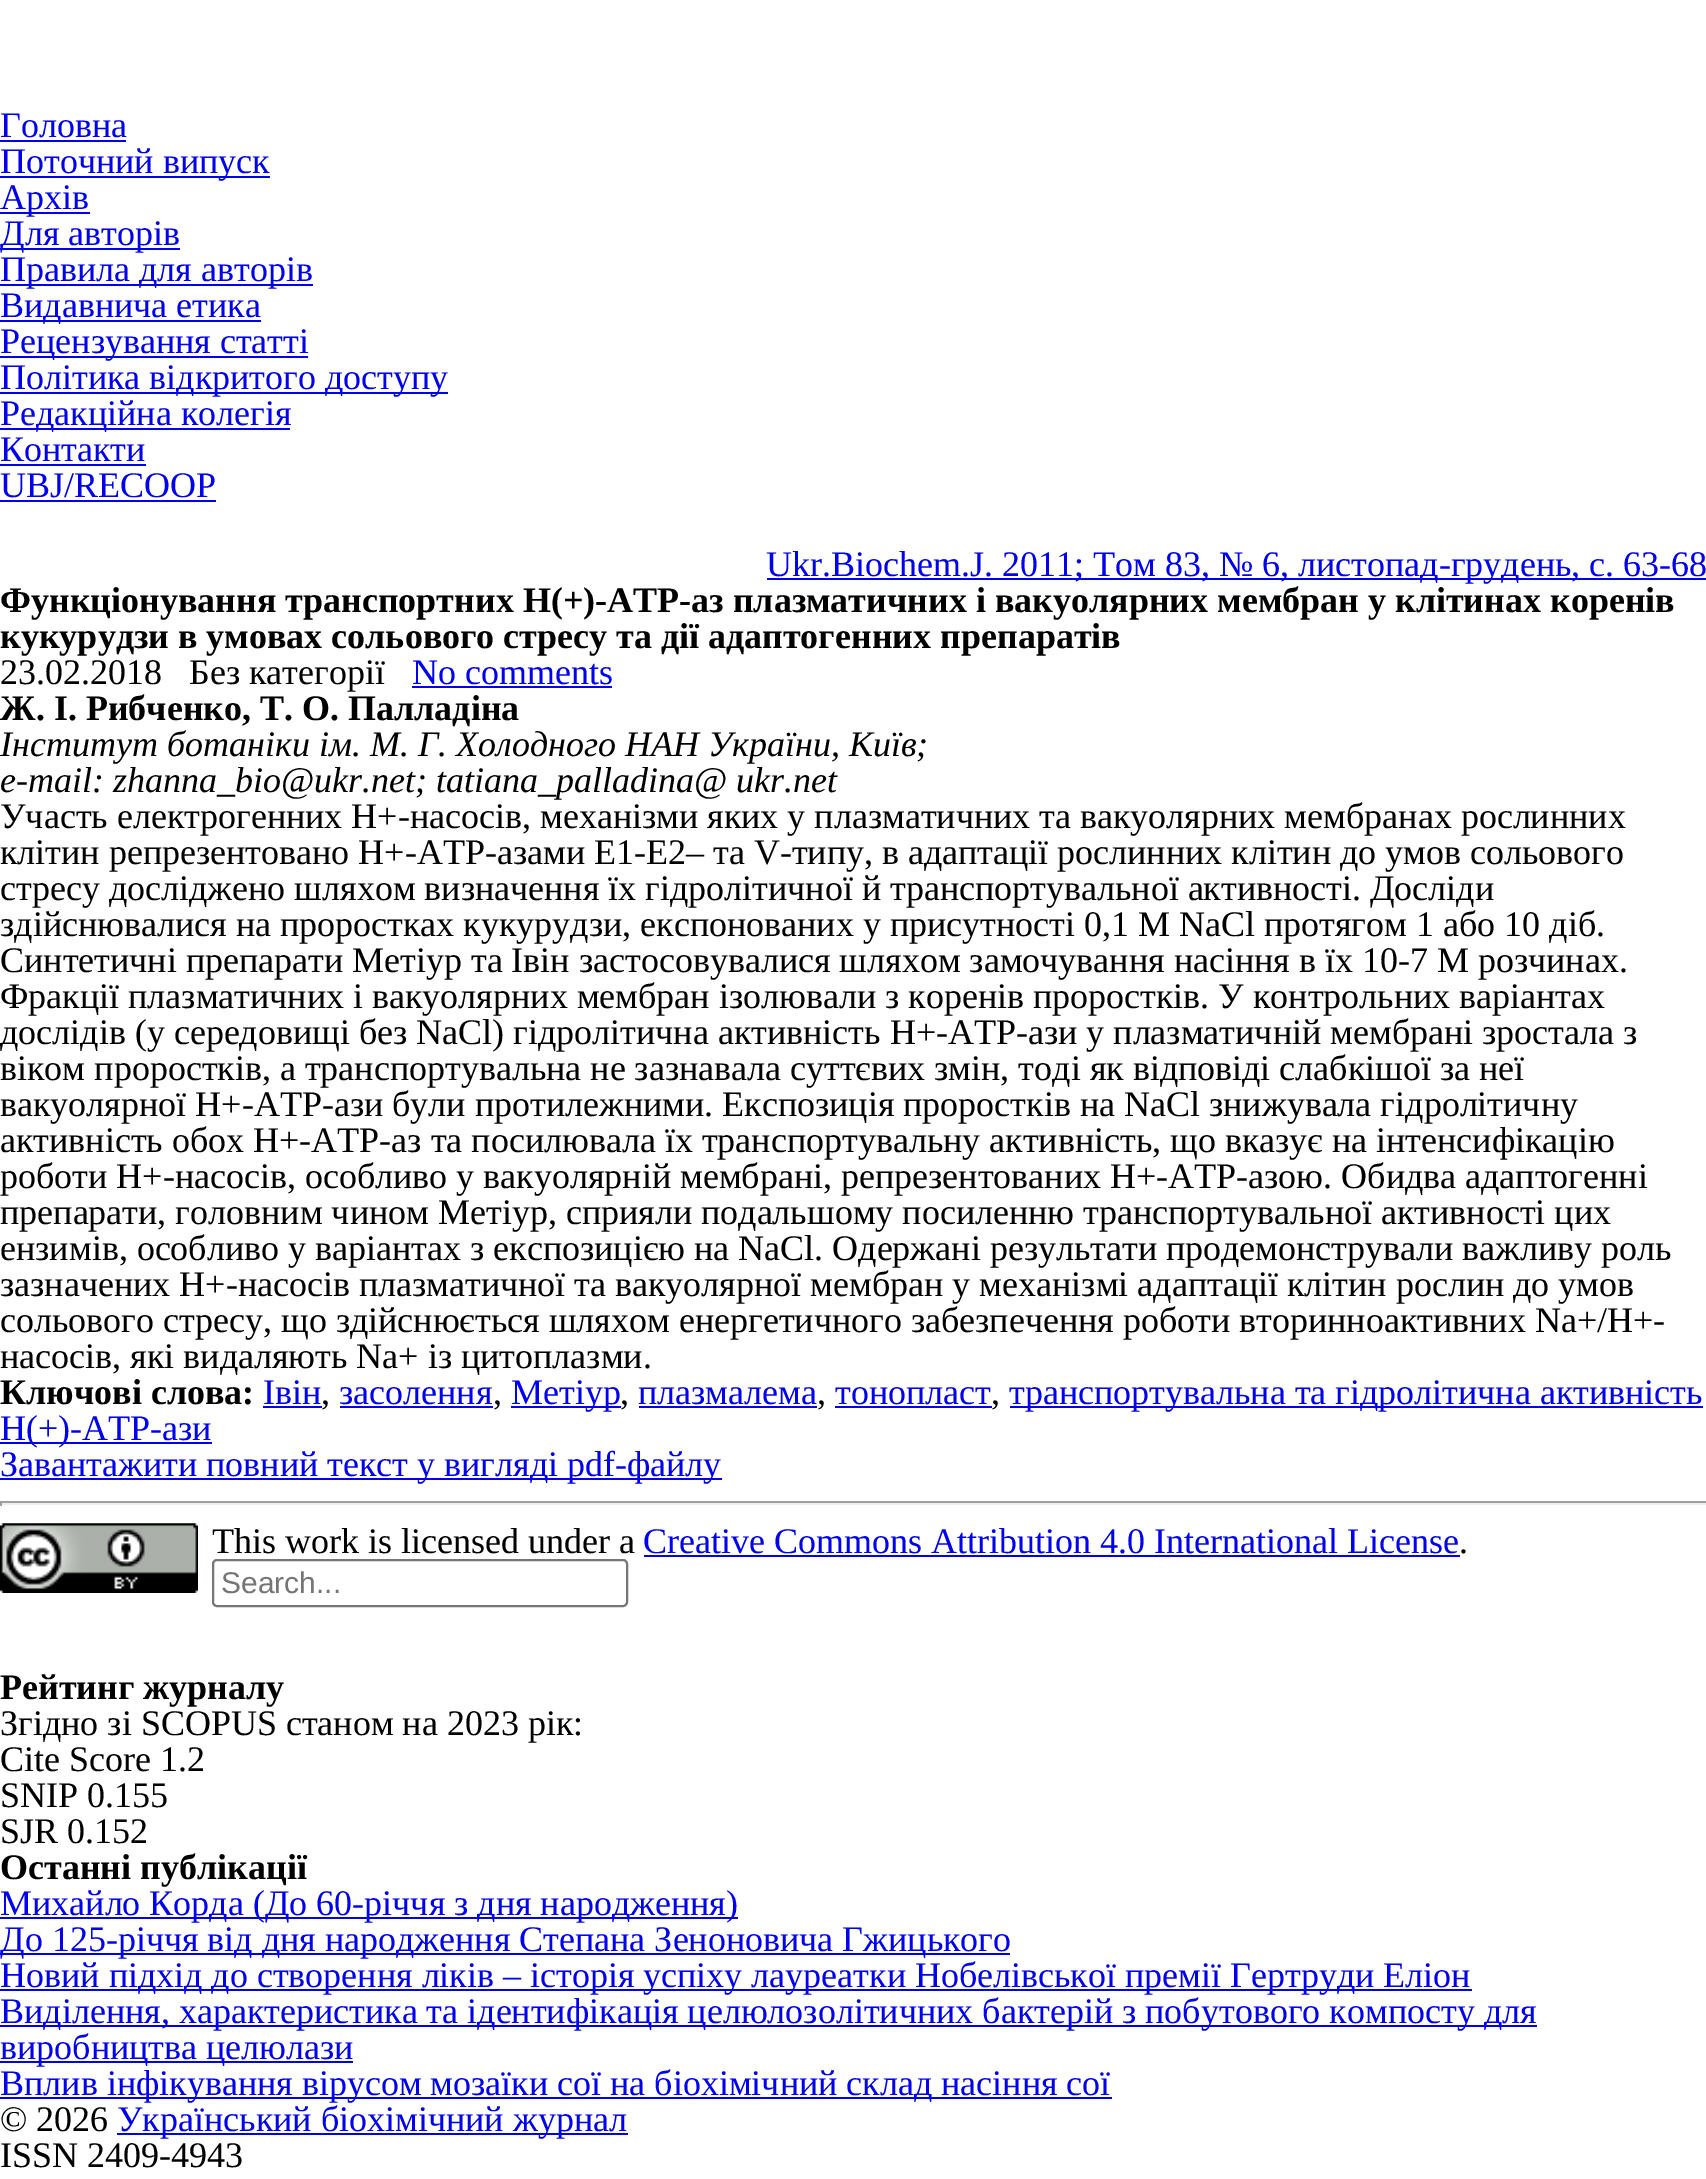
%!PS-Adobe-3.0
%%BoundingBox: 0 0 1706 2179
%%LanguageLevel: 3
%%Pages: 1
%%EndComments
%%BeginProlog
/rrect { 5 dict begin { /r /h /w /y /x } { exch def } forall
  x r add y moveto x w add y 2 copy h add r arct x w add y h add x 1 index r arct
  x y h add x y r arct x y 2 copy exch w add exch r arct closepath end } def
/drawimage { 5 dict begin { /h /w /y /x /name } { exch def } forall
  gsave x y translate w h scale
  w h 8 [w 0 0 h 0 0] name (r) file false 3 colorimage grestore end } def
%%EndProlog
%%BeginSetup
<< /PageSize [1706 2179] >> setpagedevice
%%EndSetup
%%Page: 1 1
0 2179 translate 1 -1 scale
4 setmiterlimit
1 setgray
0 0 1706 2179 rectfill
0 0 0.933 setrgbcolor
0 140 126 2 rectfill
0 176 270 2 rectfill
0 212 90 2 rectfill
0 248 180 2 rectfill
0 284 313 2 rectfill
0 320 261 2 rectfill
0 356 308 2 rectfill
0 392 448 2 rectfill
0 428 290 2 rectfill
0 464 146 2 rectfill
0 500 216 2 rectfill
767 578 939 2 rectfill
412 686 200 2 rectfill
263 1406 59 2 rectfill
340 1406 153 2 rectfill
511 1406 110 2 rectfill
639 1406 178 2 rectfill
835 1406 157 2 rectfill
1010 1406 693 2 rectfill
0 1442 212 2 rectfill
0 1478 722 2 rectfill
0.624 setgray
0 1501 1706 2 rectfill
0.933 setgray
0 1503 1706 2 rectfill
0.624 setgray
0 1501 2 5 rectfill
(images/1.raw) 0 1523 198 70 drawimage
0 0 0.933 setrgbcolor
644 1555 816 2 rectfill
0.463 setgray
2 setlinewidth
213 1560 414 46 4 rrect stroke
0 0 0.933 setrgbcolor
0 1917 738 2 rectfill
0 1953 1010 2 rectfill
0 1989 1472 2 rectfill
0 2025 1537 2 rectfill
0 2061 353 2 rectfill
0 2097 1112 2 rectfill
117 2133 511 2 rectfill
/LiberationSerif-Regular [36 0 0 -36 0 0] selectfont
0 137 moveto (Головна) show
0 173 moveto (Поточний випуск) show
0 209 moveto (Архів) show
0 245 moveto (Для авторів) show
0 281 moveto (Правила для авторів) show
0 317 moveto (Видавнича етика) show
0 353 moveto (Рецензування статті) show
0 389 moveto (Політика відкритого доступу) show
0 425 moveto (Редакційна колегія) show
0 461 moveto (Контакти) show
0 497 moveto (UBJ/RECOOP) show
766 576 moveto (Ukr.Biochem.J. 2011; Том 83, № 6, листопад-грудень, c. 63-68) show
/LiberationSerif-Bold [36 0 0 -36 0 0] selectfont
0 setgray
0 612 moveto (Функціонування транспортних Н\(+\)-АТP-аз плазматичних і вакуолярних мембран у клітинах коренів) show
0 648 moveto (кукурудзи в умовах сольового стресу та дії адаптогенних препаратів) show
/LiberationSerif-Regular [36 0 0 -36 0 0] selectfont
0 684 moveto (23.02.2018) show
189 684 moveto (Без категорії) show
0 0 0.933 setrgbcolor
412 684 moveto (No comments) show
/LiberationSerif-Bold [36 0 0 -36 0 0] selectfont
0 setgray
0 720 moveto (Ж. І. Рибченко, Т. О. Палладіна) show
/LiberationSerif-Italic [36 0 0 -36 0 0] selectfont
0 756 moveto (Інститут ботаніки ім. М. Г. Холодного НАН України, Київ;) show
0 792 moveto (e-mail: zhanna_bio@ukr.net; tatiana_palladina@ ukr.net) show
/LiberationSerif-Regular [36 0 0 -36 0 0] selectfont
0 828 moveto (Участь електрогенних Н+-насосів, механізми яких у плазматичних та вакуолярних мембранах рослинних) show
0 864 moveto (клітин репрезентовано Н+-АТP-aзами Е1-Е2– та V-типу, в адаптації рослинних клітин до умов сольового) show
0 900 moveto (стресу досліджено шляхом визначення їх гідролітичної й транспортувальної активності. Досліди) show
0 936 moveto (здійснювалися на проростках кукурудзи, експонованих у присутності 0,1 М NaCl протягом 1 або 10 діб.) show
0 972 moveto (Синтетичні препарати Метіур та Івін застосовувалися шляхом замочування насіння в їх 10-7 М розчинах.) show
0 1008 moveto (Фракції плазматичних і вакуолярних мембран ізолювали з коренів проростків. У контрольних варіантах) show
0 1044 moveto (дослідів \(у середовищі без NaCl\) гідролітична активність Н+-АТP-ази у плазматичній мембрані зростала з) show
0 1080 moveto (віком проростків, а транспортувальна не зазнавала суттєвих змін, тоді як відповіді слабкішої за неї) show
0 1116 moveto (вакуолярної Н+-АТP-ази були протилежними. Експозиція проростків на NaCl знижувала гідролітичну) show
0 1152 moveto (активність обох Н+-АТP-аз та посилювала їх транспортувальну активність, що вказує на інтенсифікацію) show
0 1188 moveto (роботи Н+-насосів, особливо у вакуолярній мембрані, репрезентованих Н+-АТP-азою. Обидва адаптогенні) show
0 1224 moveto (препарати, головним чином Метіур, сприяли подальшому посиленню транспортувальної активності цих) show
0 1260 moveto (ензимів, особливо у варіантах з експозицією на NaCl. Одержані результати продемонстрували важливу роль) show
0 1296 moveto (зазначених Н+-насосів плазматичної та вакуолярної мембран у механізмі адаптації клітин рослин до умов) show
0 1332 moveto (сольового стресу, що здійснюється шляхом енергетичного забезпечення роботи вторинноактивних Na+/H+-) show
0 1368 moveto (насосів, які видаляють Na+ із цитоплазми.) show
/LiberationSerif-Bold [36 0 0 -36 0 0] selectfont
0 1404 moveto (Ключові слова:) show
/LiberationSerif-Regular [36 0 0 -36 0 0] selectfont
0 0 0.933 setrgbcolor
263 1404 moveto (Івін) show
0 setgray
321 1404 moveto (,) show
0 0 0.933 setrgbcolor
339 1404 moveto (засолення) show
0 setgray
493 1404 moveto (,) show
0 0 0.933 setrgbcolor
511 1404 moveto (Метіур) show
0 setgray
620 1404 moveto (,) show
0 0 0.933 setrgbcolor
638 1404 moveto (плазмалема) show
0 setgray
817 1404 moveto (,) show
0 0 0.933 setrgbcolor
835 1404 moveto (тонопласт) show
0 setgray
991 1404 moveto (,) show
0 0 0.933 setrgbcolor
1009 1404 moveto (транспортувальна та гідролітична активність) show
0 1440 moveto (Н\(+\)-АТP-ази) show
0 1476 moveto (Завантажити повний текст у вигляді pdf-файлу) show
0 setgray
212 1553 moveto (This work is licensed under a) show
0 0 0.933 setrgbcolor
643 1553 moveto (Creative Commons Attribution 4.0 International License) show
0 setgray
1459 1553 moveto (.) show
/LiberationSans-Regular [30 0 0 -30 0 0] selectfont
0.459 setgray
221 1593 moveto (Search...) show
/LiberationSerif-Bold [36 0 0 -36 0 0] selectfont
0 setgray
0 1699 moveto (Рейтинг журналу) show
/LiberationSerif-Regular [36 0 0 -36 0 0] selectfont
0 1735 moveto (Згідно зі SCOPUS станом на 2023 рік:) show
0 1771 moveto (Cite Score 1.2) show
0 1807 moveto (SNIP 0.155) show
0 1843 moveto (SJR 0.152) show
/LiberationSerif-Bold [36 0 0 -36 0 0] selectfont
0 1879 moveto (Останні публікації) show
/LiberationSerif-Regular [36 0 0 -36 0 0] selectfont
0 0 0.933 setrgbcolor
0 1915 moveto (Михайло Корда \(До 60-річчя з дня народження\)) show
0 1951 moveto (До 125-річчя від дня народження Степана Зеноновича Гжицького) show
0 1987 moveto (Новий підхід до створення ліків – історія успіху лауреатки Нобелівської премії Гертруди Еліон) show
0 2023 moveto (Виділення, характеристика та ідентифікація целюлозолітичних бактерій з побутового компосту для) show
0 2059 moveto (виробництва целюлази) show
0 2095 moveto (Вплив інфікування вірусом мозаїки сої на біохімічний склад насіння сої) show
0 setgray
0 2131 moveto (© 2026) show
0 0 0.933 setrgbcolor
117 2131 moveto (Український біохімічний журнал) show
0 setgray
0 2167 moveto (ISSN 2409-4943) show
showpage
%%EOF
